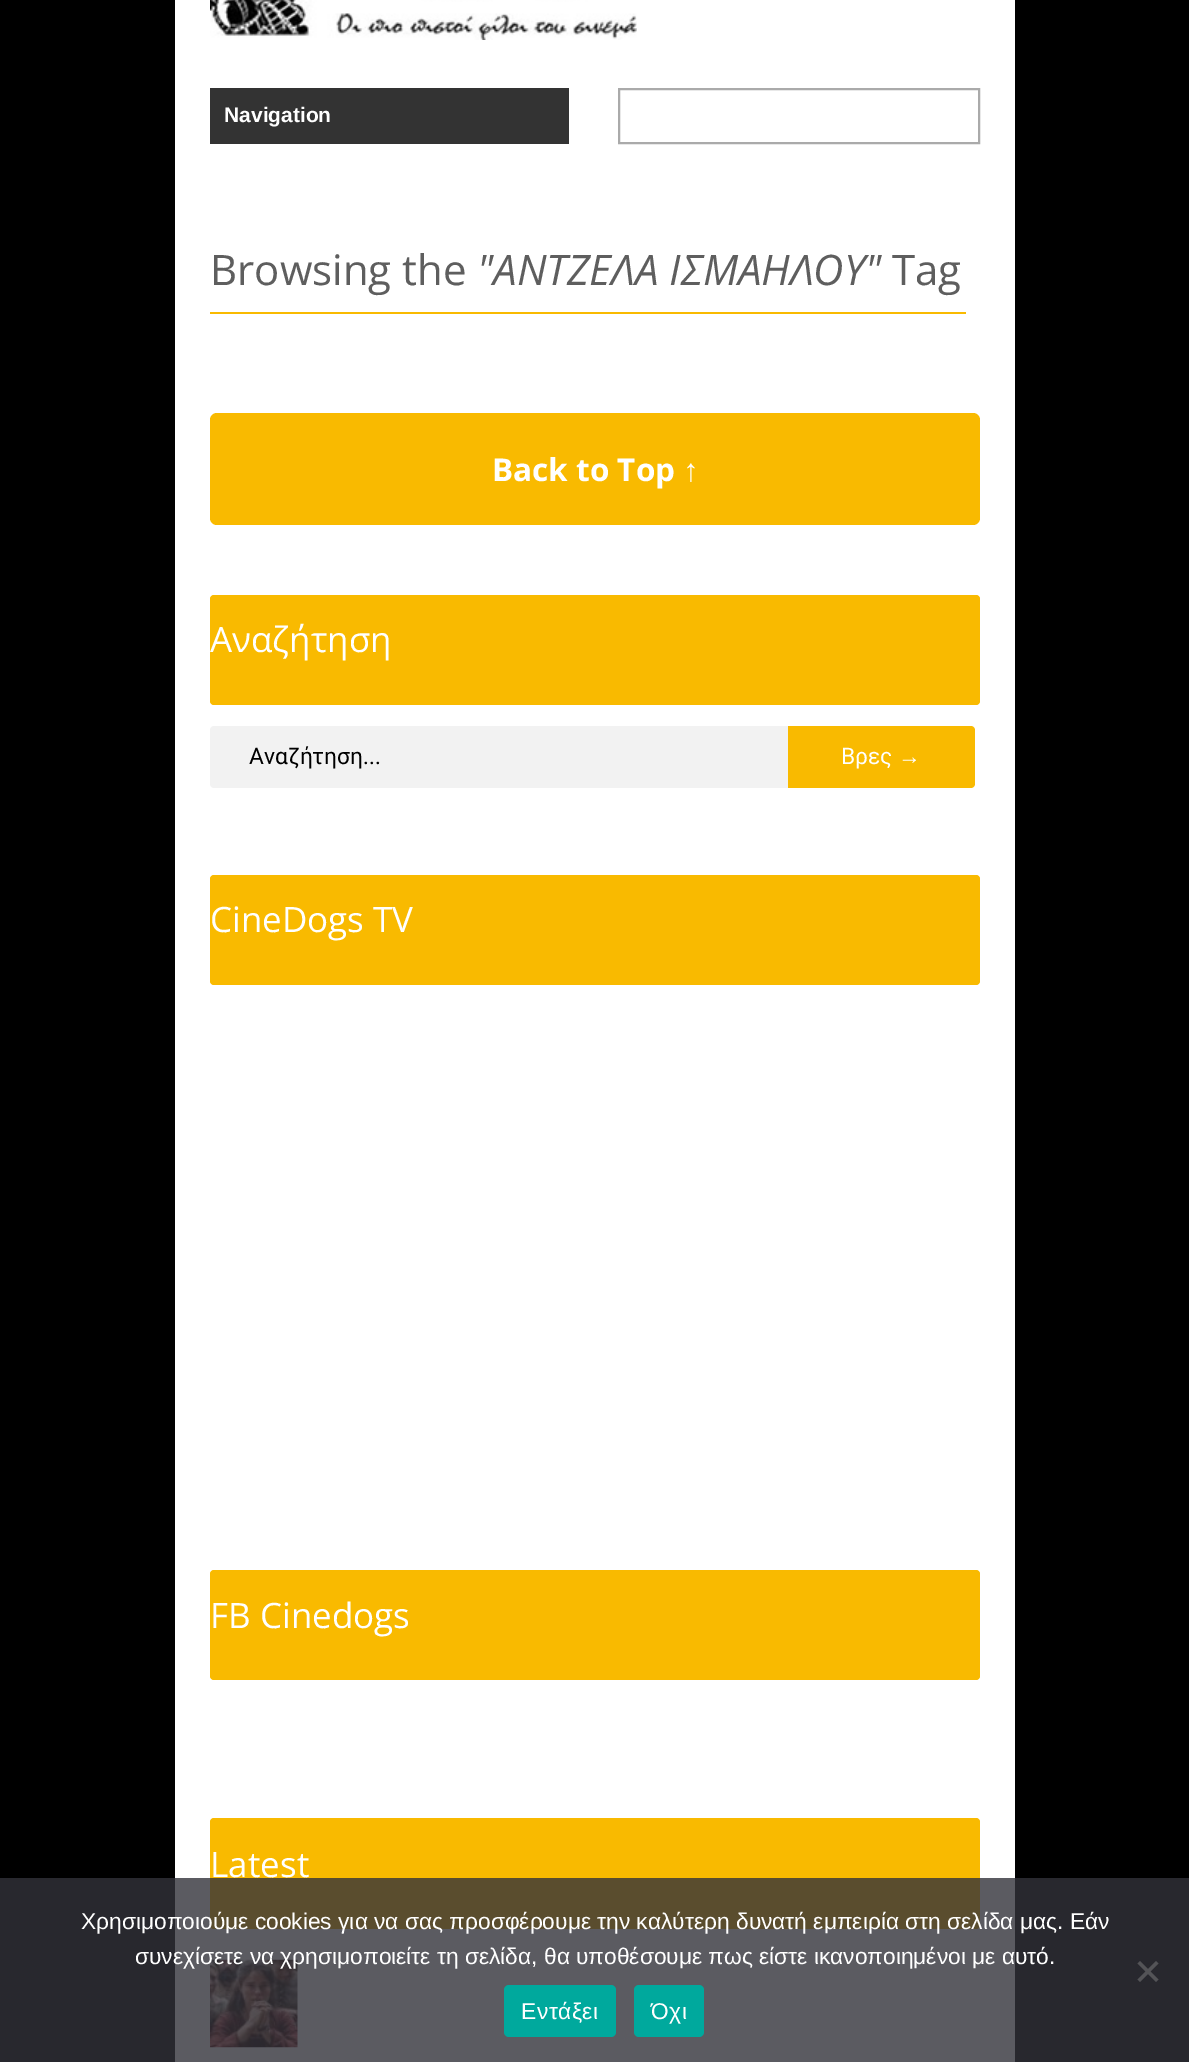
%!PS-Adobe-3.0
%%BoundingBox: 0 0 1189 2062
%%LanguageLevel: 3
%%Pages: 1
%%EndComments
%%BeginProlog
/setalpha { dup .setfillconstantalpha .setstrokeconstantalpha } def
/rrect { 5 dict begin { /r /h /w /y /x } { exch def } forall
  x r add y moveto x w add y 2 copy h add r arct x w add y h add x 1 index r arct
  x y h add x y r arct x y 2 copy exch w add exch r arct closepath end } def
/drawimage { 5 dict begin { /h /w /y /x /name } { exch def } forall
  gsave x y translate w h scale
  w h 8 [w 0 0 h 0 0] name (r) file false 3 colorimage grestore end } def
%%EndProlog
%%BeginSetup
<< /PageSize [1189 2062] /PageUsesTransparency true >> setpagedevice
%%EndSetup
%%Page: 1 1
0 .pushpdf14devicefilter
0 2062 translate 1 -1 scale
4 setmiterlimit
0 setgray
0 0 1189 2062 rectfill
1 setgray
175 0 840 2062 rectfill
(images/1.raw) 210 0 427 40 drawimage
0.2 setgray
210 88 359 56 rectfill
0.667 setgray
2 setlinewidth
619 89 360 54 rectstroke
0.976 0.729 0 setrgbcolor
210 312 756 2 rectfill
210 413 770 112 7 rrect fill
210 595 770 110 4 rrect fill
0.949 setgray
newpath 214 726 moveto 788 726 lineto 788 788 lineto 214 788 lineto 212 788 210 786 210 784 curveto 210 730 lineto 210 728 212 726 214 726 curveto closepath fill
0.976 0.729 0 setrgbcolor
newpath 788 726 moveto 971 726 lineto 973 726 975 728 975 730 curveto 975 784 lineto 975 786 973 788 971 788 curveto 788 788 lineto closepath fill
210 875 770 110 4 rrect fill
210 1570 770 110 4 rrect fill
210 1818 770 111 4 rrect fill
(images/2.raw) 210 1959 88 89 drawimage
0.8 setalpha
0.196 0.196 0.227 setrgbcolor
0 1878 1189 184 rectfill
1 setalpha
0.329 0.329 0.341 setrgbcolor
newpath 1156 1961 moveto 1158.5 1963.5 lineto 1140 1982 lineto 1137.5 1979.5 lineto closepath fill
newpath 1137.5 1963.5 moveto 1140 1961 lineto 1158.5 1979.5 lineto 1156 1982 lineto closepath fill
0 0.663 0.616 setrgbcolor
504 1985 112 52 5 rrect fill
634 1985 70 52 5 rrect fill
/LiberationSans-Bold [21 0 0 -21 0 0] selectfont
1 setgray
224 122 moveto (Navigation) show
/OpenSans-Regular [42 0 0 -42 0 0] selectfont
0.369 setgray
210 285 moveto (Browsing the) show
/OpenSans-Italic [42 0 0 -42 0 0] selectfont
477 285 moveto ("ΑΝΤΖΕΛΑ ΙΣΜΑΗΛΟΥ") show
/OpenSans-Regular [42 0 0 -42 0 0] selectfont
892 285 moveto (Tag) show
/OpenSans-Bold [31.5 0 0 -31.5 0 0] selectfont
1 setgray
492 481 moveto (Back to Top) show
/LiberationSans-Bold [31.5 0 0 -31.5 0 0] selectfont
683 481 moveto (↑) show
/OpenSans-Regular [35 0 0 -35 0 0] selectfont
210 652 moveto (Αναζήτηση) show
/Roboto-Regular [22.75 0 0 -22.75 0 0] selectfont
0 setgray
249 764 moveto (Αναζήτηση...) show
1 setgray
841 764 moveto (Βρες) show
/LiberationSans-Regular [22.75 0 0 -22.75 0 0] selectfont
898 764 moveto (→) show
/OpenSans-Regular [35 0 0 -35 0 0] selectfont
210 932 moveto (CineDogs TV) show
210 1628 moveto (FB Cinedogs) show
210 1877 moveto (Latest) show
/LiberationSans-Regular [22.75 0 0 -22.75 0 0] selectfont
81 1929 moveto (Χρησιμοποιούμε cookies για να σας προσφέρουμε την καλύτερη δυνατή εμπειρία στη σελίδα μας. Εάν) show
135 1964 moveto (συνεχίσετε να χρησιμοποιείτε τη σελίδα, θα υποθέσουμε πως είστε ικανοποιημένοι με αυτό.) show
521 2019 moveto 0.5 0 (Εντάξει) ashow
651 2019 moveto 0.5 0 (Όχι) ashow
.poppdf14devicefilter showpage
%%EOF
